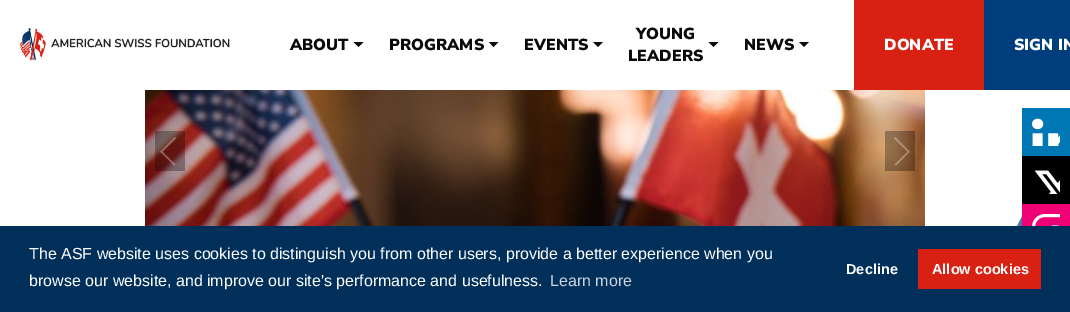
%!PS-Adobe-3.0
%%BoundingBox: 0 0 1070 312
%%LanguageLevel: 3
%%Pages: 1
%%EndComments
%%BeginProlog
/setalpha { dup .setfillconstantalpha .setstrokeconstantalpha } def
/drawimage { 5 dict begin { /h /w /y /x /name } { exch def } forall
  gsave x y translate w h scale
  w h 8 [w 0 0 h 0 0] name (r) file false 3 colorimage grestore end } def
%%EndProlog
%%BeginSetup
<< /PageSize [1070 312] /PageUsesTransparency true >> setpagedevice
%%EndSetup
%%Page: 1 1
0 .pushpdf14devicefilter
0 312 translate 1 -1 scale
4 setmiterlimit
1 setgray
0 0 1070 312 rectfill
(images/1.raw) 20 28 210 33 drawimage
0.039 setgray
newpath 353.5 42 moveto 363.5 42 lineto 358.5 47 lineto closepath fill
newpath 489 42 moveto 498.5 42 lineto 493.5 47 lineto closepath fill
newpath 593 42 moveto 603 42 lineto 598 47 lineto closepath fill
newpath 708.5 42 moveto 718.5 42 lineto 713.5 47 lineto closepath fill
newpath 799 42 moveto 809 42 lineto 804 47 lineto closepath fill
0.847 0.125 0.075 setrgbcolor
854 0 130 90 rectfill
0 0.239 0.49 setrgbcolor
984 0 86 90 rectfill
(images/2.raw) 145 90 780 136 drawimage
0.3 setalpha
0 setgray
155 131 30 40 rectfill
1 setalpha
(images/3.raw) 160 137 16 29 drawimage
0.3 setalpha
885 131 30 40 rectfill
1 setalpha
(images/4.raw) 894 137 16 29 drawimage
(images/5.raw) 1015 216 7 10 drawimage
0 0.467 0.71 setrgbcolor
1022 108 48 48 rectfill
(images/6.raw) 1032 118 28 28 drawimage
0 setgray
1022 156 48 48 rectfill
(images/7.raw) 1034 170 26 24 drawimage
0.937 0 0.459 setrgbcolor
1022 204 48 22 rectfill
(images/8.raw) 1032 214 28 12 drawimage
0 0.184 0.353 setrgbcolor
0 226 1070 86 rectfill
0.847 0.125 0.075 setrgbcolor
918 249 123 40 rectfill
/NunitoSans-Black [16 0 0 -16 0 0] selectfont
0.039 setgray
290 50 moveto (ABOUT) show
389 50 moveto (PROGRAMS) show
524 50 moveto (EVENTS) show
636 39 moveto (YOUNG) show
628 61 moveto (LEADERS) show
744 50 moveto (NEWS) show
1 setgray
884 50 moveto (DONATE) show
1014 50 moveto (SIGN IN) show
/LiberationSans-Regular [16 0 0 -16 0 0] selectfont
29 259 moveto (The ASF website uses cookies to distinguish you from other users, provide a better experience when you) show
29 286 moveto (browse our website, and improve our site's performance and usefulness.) show
0.8 0.835 0.871 setrgbcolor
550 286 moveto (Learn more) show
/LiberationSans-Bold [14.5 0 0 -14.5 0 0] selectfont
1 setgray
846 274 moveto (Decline) show
932 274 moveto (Allow cookies) show
.poppdf14devicefilter showpage
%%EOF
